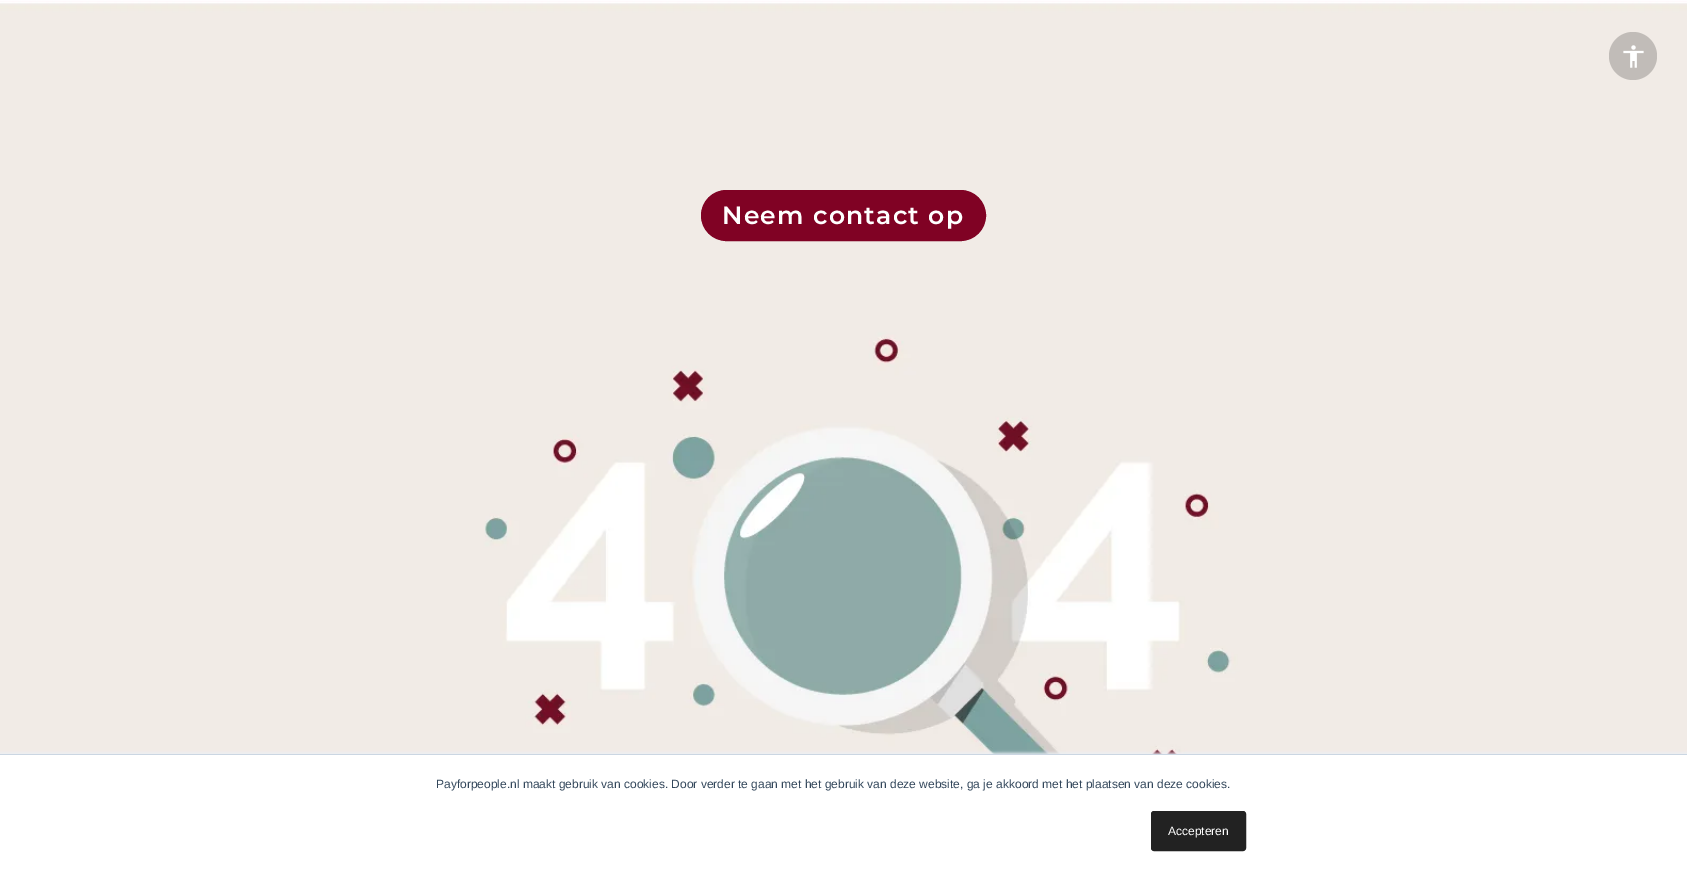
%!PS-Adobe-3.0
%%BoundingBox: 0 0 1687 877
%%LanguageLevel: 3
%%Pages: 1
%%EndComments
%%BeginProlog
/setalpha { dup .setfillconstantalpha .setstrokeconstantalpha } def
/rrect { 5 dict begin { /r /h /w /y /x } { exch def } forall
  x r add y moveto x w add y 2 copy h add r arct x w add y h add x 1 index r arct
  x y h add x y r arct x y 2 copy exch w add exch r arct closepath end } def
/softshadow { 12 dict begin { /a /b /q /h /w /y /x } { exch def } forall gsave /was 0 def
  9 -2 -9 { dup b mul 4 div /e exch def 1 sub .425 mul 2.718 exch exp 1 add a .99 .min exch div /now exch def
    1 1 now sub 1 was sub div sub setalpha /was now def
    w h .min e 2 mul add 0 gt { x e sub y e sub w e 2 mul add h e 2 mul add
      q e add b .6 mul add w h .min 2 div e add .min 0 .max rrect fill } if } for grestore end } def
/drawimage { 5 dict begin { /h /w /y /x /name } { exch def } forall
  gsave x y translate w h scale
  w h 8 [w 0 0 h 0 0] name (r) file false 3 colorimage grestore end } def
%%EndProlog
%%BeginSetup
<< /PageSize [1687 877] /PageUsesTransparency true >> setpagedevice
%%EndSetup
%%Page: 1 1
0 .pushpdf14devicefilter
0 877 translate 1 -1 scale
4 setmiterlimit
1 setgray
0 0 1687 877 rectfill
(images/2.raw) 0 0 1687 754 drawimage
0.757 0.737 0.722 setrgbcolor
newpath 1633 56 24 0 360 arc closepath fill
(images/1.raw) 1623 45 21 23 drawimage
0.502 0.008 0.141 setrgbcolor
701.5 190.5 284 50 25 rrect gsave fill grestore
stroke
0.918 0.941 0.965 setrgbcolor
0 753 1687 123 0 1.5 1 softshadow
1 setgray
0 755 1687 122 rectfill
0.796 0.839 0.886 setrgbcolor
0 754 1687 1 rectfill
0.133 setgray
1151.5 811.5 94 39 2.5 rrect gsave fill grestore
stroke
/Montserrat-SemiBold [25 0 0 -25 0 0] selectfont
1 setgray
722 224 moveto 1.25 0 (Neem contact op) ashow
/LiberationSans-Regular [12 0 0 -12 0 0] selectfont
0.2 0.278 0.357 setrgbcolor
436 788 moveto (Payforpeople.nl maakt gebruik van cookies. Door verder te gaan met het gebruik van deze website, ga je akkoord met het plaatsen van deze cookies.) show
1 setgray
1168 835 moveto (Accepteren) show
.poppdf14devicefilter showpage
%%EOF
